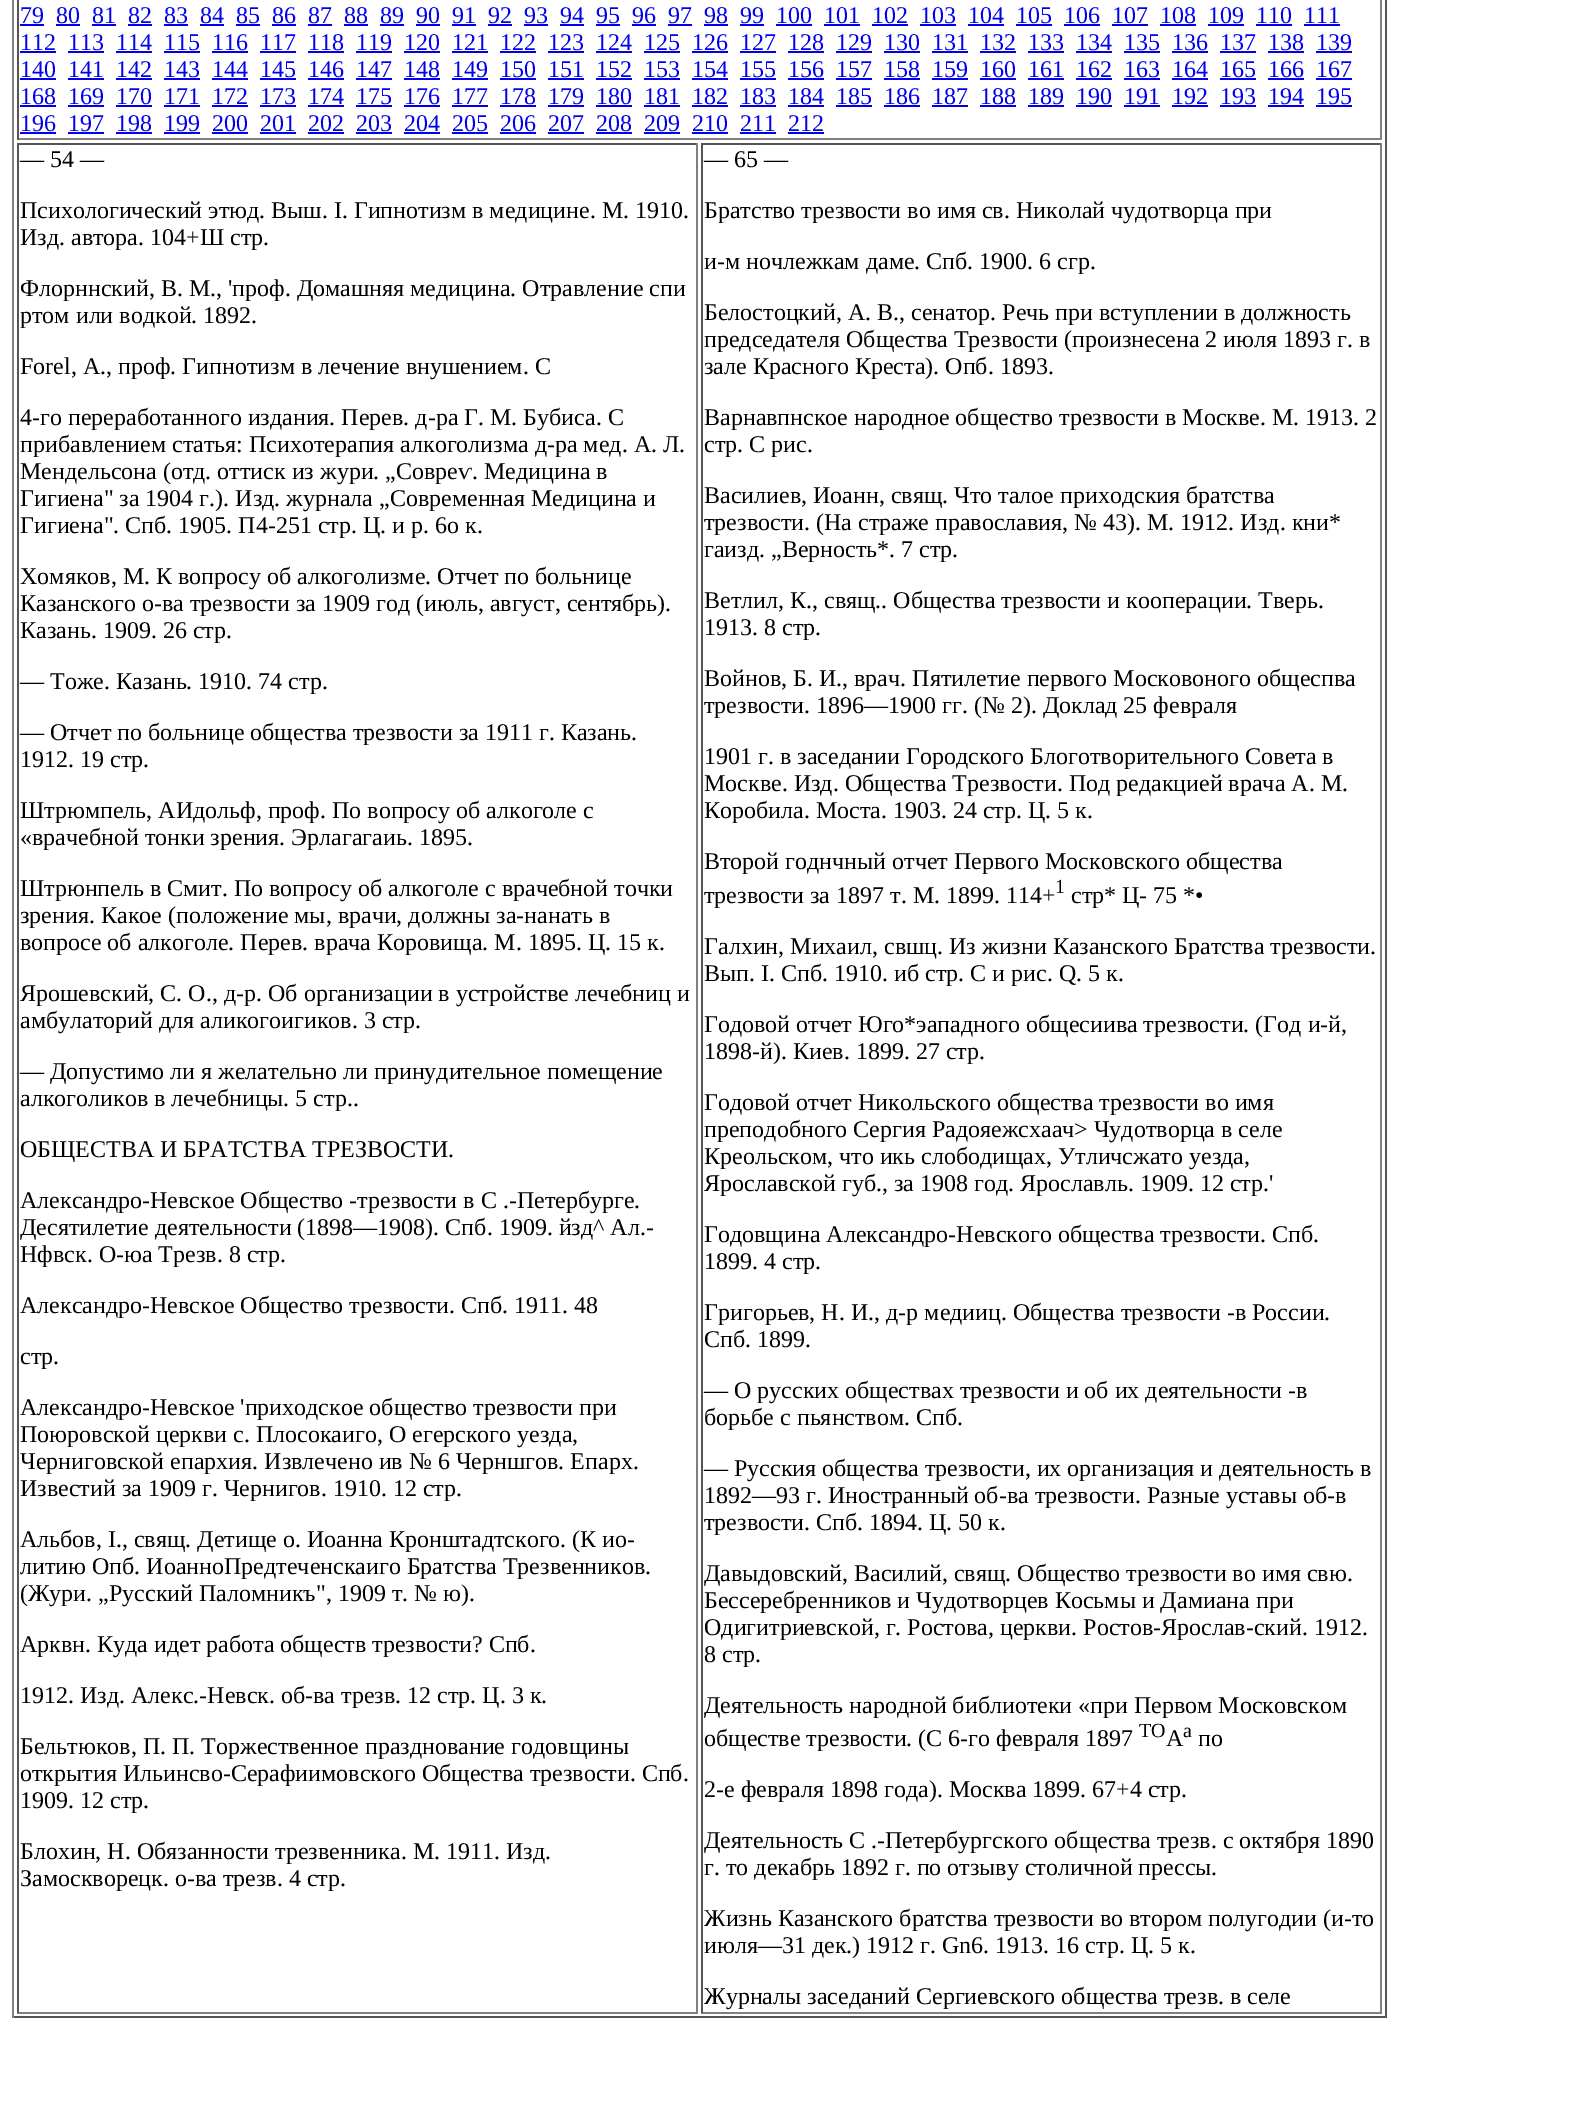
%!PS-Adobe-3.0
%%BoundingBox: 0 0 1590 2106
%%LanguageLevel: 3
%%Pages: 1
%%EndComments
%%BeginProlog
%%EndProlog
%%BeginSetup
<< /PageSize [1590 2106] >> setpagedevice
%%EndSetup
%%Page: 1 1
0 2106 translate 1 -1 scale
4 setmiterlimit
1 setgray
0 0 1590 2106 rectfill
0.333 setgray
1385 0 2 2018 rectfill
12 2016 1374 2 rectfill
0.502 setgray
12 0 2 2018 rectfill
1380 0 2 140 rectfill
17 138 1365 2 rectfill
0.333 setgray
17 0 2 140 rectfill
0 0 0.933 setrgbcolor
20 24 24 2 rectfill
56 24 24 2 rectfill
92 24 24 2 rectfill
128 24 24 2 rectfill
164 24 24 2 rectfill
200 24 24 2 rectfill
236 24 24 2 rectfill
272 24 24 2 rectfill
308 24 24 2 rectfill
344 24 24 2 rectfill
380 24 24 2 rectfill
416 24 24 2 rectfill
452 24 24 2 rectfill
488 24 24 2 rectfill
524 24 24 2 rectfill
560 24 24 2 rectfill
596 24 24 2 rectfill
632 24 24 2 rectfill
668 24 24 2 rectfill
704 24 24 2 rectfill
740 24 24 2 rectfill
776 24 36 2 rectfill
824 24 36 2 rectfill
872 24 36 2 rectfill
920 24 36 2 rectfill
968 24 36 2 rectfill
1016 24 36 2 rectfill
1064 24 36 2 rectfill
1112 24 36 2 rectfill
1160 24 36 2 rectfill
1208 24 36 2 rectfill
1256 24 36 2 rectfill
1304 24 36 2 rectfill
20 51 36 2 rectfill
68 51 36 2 rectfill
116 51 36 2 rectfill
164 51 36 2 rectfill
212 51 36 2 rectfill
260 51 36 2 rectfill
308 51 36 2 rectfill
356 51 36 2 rectfill
404 51 36 2 rectfill
452 51 36 2 rectfill
500 51 36 2 rectfill
548 51 36 2 rectfill
596 51 36 2 rectfill
644 51 36 2 rectfill
692 51 36 2 rectfill
740 51 36 2 rectfill
788 51 36 2 rectfill
836 51 36 2 rectfill
884 51 36 2 rectfill
932 51 36 2 rectfill
980 51 36 2 rectfill
1028 51 36 2 rectfill
1076 51 36 2 rectfill
1124 51 36 2 rectfill
1172 51 36 2 rectfill
1220 51 36 2 rectfill
1268 51 36 2 rectfill
1316 51 36 2 rectfill
20 78 36 2 rectfill
68 78 36 2 rectfill
116 78 36 2 rectfill
164 78 36 2 rectfill
212 78 36 2 rectfill
260 78 36 2 rectfill
308 78 36 2 rectfill
356 78 36 2 rectfill
404 78 36 2 rectfill
452 78 36 2 rectfill
500 78 36 2 rectfill
548 78 36 2 rectfill
596 78 36 2 rectfill
644 78 36 2 rectfill
692 78 36 2 rectfill
740 78 36 2 rectfill
788 78 36 2 rectfill
836 78 36 2 rectfill
884 78 36 2 rectfill
932 78 36 2 rectfill
980 78 36 2 rectfill
1028 78 36 2 rectfill
1076 78 36 2 rectfill
1124 78 36 2 rectfill
1172 78 36 2 rectfill
1220 78 36 2 rectfill
1268 78 36 2 rectfill
1316 78 36 2 rectfill
20 105 36 2 rectfill
68 105 36 2 rectfill
116 105 36 2 rectfill
164 105 36 2 rectfill
212 105 36 2 rectfill
260 105 36 2 rectfill
308 105 36 2 rectfill
356 105 36 2 rectfill
404 105 36 2 rectfill
452 105 36 2 rectfill
500 105 36 2 rectfill
548 105 36 2 rectfill
596 105 36 2 rectfill
644 105 36 2 rectfill
692 105 36 2 rectfill
740 105 36 2 rectfill
788 105 36 2 rectfill
836 105 36 2 rectfill
884 105 36 2 rectfill
932 105 36 2 rectfill
980 105 36 2 rectfill
1028 105 36 2 rectfill
1076 105 36 2 rectfill
1124 105 36 2 rectfill
1172 105 36 2 rectfill
1220 105 36 2 rectfill
1268 105 36 2 rectfill
1316 105 36 2 rectfill
20 132 36 2 rectfill
68 132 36 2 rectfill
116 132 36 2 rectfill
164 132 36 2 rectfill
212 132 36 2 rectfill
260 132 36 2 rectfill
308 132 36 2 rectfill
356 132 36 2 rectfill
404 132 36 2 rectfill
452 132 36 2 rectfill
500 132 36 2 rectfill
548 132 36 2 rectfill
596 132 36 2 rectfill
644 132 36 2 rectfill
692 132 36 2 rectfill
740 132 36 2 rectfill
788 132 36 2 rectfill
0.333 setgray
17 143 681 2 rectfill
0.502 setgray
696 143 2 1870 rectfill
17 2012 681 2 rectfill
0.333 setgray
17 143 2 1870 rectfill
701 143 681 2 rectfill
0.502 setgray
1380 143 2 1870 rectfill
701 2012 681 2 rectfill
0.333 setgray
701 143 2 1870 rectfill
/LiberationSerif-Regular [24 0 0 -24 0 0] selectfont
0 0 0.933 setrgbcolor
20 23 moveto (79) show
56 23 moveto (80) show
92 23 moveto (81) show
128 23 moveto (82) show
164 23 moveto (83) show
200 23 moveto (84) show
236 23 moveto (85) show
272 23 moveto (86) show
308 23 moveto (87) show
344 23 moveto (88) show
380 23 moveto (89) show
416 23 moveto (90) show
452 23 moveto (91) show
488 23 moveto (92) show
524 23 moveto (93) show
560 23 moveto (94) show
596 23 moveto (95) show
632 23 moveto (96) show
668 23 moveto (97) show
704 23 moveto (98) show
740 23 moveto (99) show
776 23 moveto (100) show
824 23 moveto (101) show
872 23 moveto (102) show
920 23 moveto (103) show
968 23 moveto (104) show
1016 23 moveto (105) show
1064 23 moveto (106) show
1112 23 moveto (107) show
1160 23 moveto (108) show
1208 23 moveto (109) show
1256 23 moveto (110) show
1304 23 moveto (111) show
20 50 moveto (112) show
68 50 moveto (113) show
116 50 moveto (114) show
164 50 moveto (115) show
212 50 moveto (116) show
260 50 moveto (117) show
308 50 moveto (118) show
356 50 moveto (119) show
404 50 moveto (120) show
452 50 moveto (121) show
500 50 moveto (122) show
548 50 moveto (123) show
596 50 moveto (124) show
644 50 moveto (125) show
692 50 moveto (126) show
740 50 moveto (127) show
788 50 moveto (128) show
836 50 moveto (129) show
884 50 moveto (130) show
932 50 moveto (131) show
980 50 moveto (132) show
1028 50 moveto (133) show
1076 50 moveto (134) show
1124 50 moveto (135) show
1172 50 moveto (136) show
1220 50 moveto (137) show
1268 50 moveto (138) show
1316 50 moveto (139) show
20 77 moveto (140) show
68 77 moveto (141) show
116 77 moveto (142) show
164 77 moveto (143) show
212 77 moveto (144) show
260 77 moveto (145) show
308 77 moveto (146) show
356 77 moveto (147) show
404 77 moveto (148) show
452 77 moveto (149) show
500 77 moveto (150) show
548 77 moveto (151) show
596 77 moveto (152) show
644 77 moveto (153) show
692 77 moveto (154) show
740 77 moveto (155) show
788 77 moveto (156) show
836 77 moveto (157) show
884 77 moveto (158) show
932 77 moveto (159) show
980 77 moveto (160) show
1028 77 moveto (161) show
1076 77 moveto (162) show
1124 77 moveto (163) show
1172 77 moveto (164) show
1220 77 moveto (165) show
1268 77 moveto (166) show
1316 77 moveto (167) show
20 104 moveto (168) show
68 104 moveto (169) show
116 104 moveto (170) show
164 104 moveto (171) show
212 104 moveto (172) show
260 104 moveto (173) show
308 104 moveto (174) show
356 104 moveto (175) show
404 104 moveto (176) show
452 104 moveto (177) show
500 104 moveto (178) show
548 104 moveto (179) show
596 104 moveto (180) show
644 104 moveto (181) show
692 104 moveto (182) show
740 104 moveto (183) show
788 104 moveto (184) show
836 104 moveto (185) show
884 104 moveto (186) show
932 104 moveto (187) show
980 104 moveto (188) show
1028 104 moveto (189) show
1076 104 moveto (190) show
1124 104 moveto (191) show
1172 104 moveto (192) show
1220 104 moveto (193) show
1268 104 moveto (194) show
1316 104 moveto (195) show
20 131 moveto (196) show
68 131 moveto (197) show
116 131 moveto (198) show
164 131 moveto (199) show
212 131 moveto (200) show
260 131 moveto (201) show
308 131 moveto (202) show
356 131 moveto (203) show
404 131 moveto (204) show
452 131 moveto (205) show
500 131 moveto (206) show
548 131 moveto (207) show
596 131 moveto (208) show
644 131 moveto (209) show
692 131 moveto (210) show
740 131 moveto (211) show
788 131 moveto (212) show
0 setgray
20 167 moveto (— 54 —) show
20 218 moveto (Психологический этюд. Выш. I. Гипнотизм в медицине. М. 1910.) show
20 245 moveto (Изд. автора. 104+Ш стр.) show
20 296 moveto (Флорннский, В. М., 'проф. Домашняя медицина. Отравление спи) show
20 323 moveto (ртом или водкой. 1892.) show
20 374 moveto (Forel, А., проф. Гипнотизм в лечение внушением. С) show
20 425 moveto (4-го переработанного издания. Перев. д-ра Г. М. Бубиса. С) show
20 452 moveto (прибавлением статья: Психотерапия алкоголизма д-ра мед. А. Л.) show
20 479 moveto (Мендельсона \(отд. оттиск из жури. „Совреѵ. Медицина в) show
20 506 moveto (Гигиена" за 1904 г.\). Изд. журнала „Современная Медицина и) show
20 533 moveto (Гигиена". Спб. 1905. П4-251 стр. Ц. и р. 6о к.) show
20 584 moveto (Хомяков, М. К вопросу об алкоголизме. Отчет по больнице) show
20 611 moveto (Казанского о-ва трезвости за 1909 год \(июль, август, сентябрь\).) show
20 638 moveto (Казань. 1909. 26 стр.) show
20 689 moveto (— Тоже. Казань. 1910. 74 стр.) show
20 740 moveto (— Отчет по больнице общества трезвости за 1911 г. Казань.) show
20 767 moveto (1912. 19 стр.) show
20 818 moveto (Штрюмпель, АИдольф, проф. По вопросу об алкоголе с) show
20 845 moveto («врачебной тонки зрения. Эрлагагаиь. 1895.) show
20 896 moveto (Штрюнпель в Смит. По вопросу об алкоголе с врачебной точки) show
20 923 moveto (зрения. Какое \(положение мы, врачи, должны за-нанать в) show
20 950 moveto (вопросе об алкоголе. Перев. врача Коровища. М. 1895. Ц. 15 к.) show
20 1001 moveto (Ярошевский, С. О., д-р. Об организации в устройстве лечебниц и) show
20 1028 moveto (амбулаторий для аликогоигиков. 3 стр.) show
20 1079 moveto (— Допустимо ли я желательно ли принудительное помещение) show
20 1106 moveto (алкоголиков в лечебницы. 5 стр..) show
20 1157 moveto (ОБЩЕСТВА И БРАТСТВА ТРЕЗВОСТИ.) show
20 1208 moveto (Александро-Невское Общество -трезвости в С .-Петербурге.) show
20 1235 moveto (Десятилетие деятельности \(1898—1908\). Спб. 1909. йзд^ Ал.-) show
20 1262 moveto (Нфвск. О-юа Трезв. 8 стр.) show
20 1313 moveto (Александро-Невское Общество трезвости. Спб. 1911. 48) show
20 1364 moveto (стр.) show
20 1415 moveto (Александро-Невское 'приходское общество трезвости при) show
20 1442 moveto (Поюровской церкви с. Плосокаиго, О егерского уезда,) show
20 1469 moveto (Черниговской епархия. Извлечено ив № 6 Черншгов. Епарх.) show
20 1496 moveto (Известий за 1909 г. Чернигов. 1910. 12 стр.) show
20 1547 moveto (Альбов, I., свящ. Детище о. Иоанна Кронштадтского. \(К ио-) show
20 1574 moveto (литию Опб. ИоанноПредтеченскаиго Братства Трезвенников.) show
20 1601 moveto (\(Жури. „Русский Паломникъ", 1909 т. № ю\).) show
20 1652 moveto (Арквн. Куда идет работа обществ трезвости? Спб.) show
20 1703 moveto (1912. Изд. Алекс.-Невск. об-ва трезв. 12 стр. Ц. 3 к.) show
20 1754 moveto (Бельтюков, П. П. Торжественное празднование годовщины) show
20 1781 moveto (открытия Ильинсво-Серафиимовского Общества трезвости. Спб.) show
20 1808 moveto (1909. 12 стр.) show
20 1859 moveto (Блохин, Н. Обязанности трезвенника. М. 1911. Изд.) show
20 1886 moveto (Замоскворецк. о-ва трезв. 4 стр.) show
704 167 moveto (— 65 —) show
704 218 moveto (Братство трезвости во имя св. Николай чудотворца при) show
704 269 moveto (и-м ночлежкам даме. Спб. 1900. 6 сгр.) show
704 320 moveto (Белостоцкий, А. В., сенатор. Речь при вступлении в должность) show
704 347 moveto (председателя Общества Трезвости \(произнесена 2 июля 1893 г. в) show
704 374 moveto (зале Красного Креста\). Опб. 1893.) show
704 425 moveto (Варнавпнское народное общество трезвости в Москве. М. 1913. 2) show
704 452 moveto (стр. С рис.) show
704 503 moveto (Василиев, Иоанн, свящ. Что талое приходския братства) show
704 530 moveto (трезвости. \(На страже православия, № 43\). М. 1912. Изд. кни*) show
704 557 moveto (гаизд. „Верность*. 7 стр.) show
704 608 moveto (Ветлил, К., свящ.. Общества трезвости и кооперации. Тверь.) show
704 635 moveto (1913. 8 стр.) show
704 686 moveto (Войнов, Б. И., врач. Пятилетие первого Московоного общеспва) show
704 713 moveto (трезвости. 1896—1900 гг. \(№ 2\). Доклад 25 февраля) show
704 764 moveto (1901 г. в заседании Городского Блоготворительного Совета в) show
704 791 moveto (Москве. Изд. Общества Трезвости. Под редакцией врача А. М.) show
704 818 moveto (Коробила. Моста. 1903. 24 стр. Ц. 5 к.) show
704 869 moveto (Второй годнчный отчет Первого Московского общества) show
704 903 moveto (трезвости за 1897 т. М. 1899. 114+) show
/LiberationSerif-Regular [20 0 0 -20 0 0] selectfont
1055 893 moveto (1) show
/LiberationSerif-Regular [24 0 0 -24 0 0] selectfont
1071 903 moveto (стр* Ц- 75 *•) show
704 954 moveto (Галхин, Михаил, свшц. Из жизни Казанского Братства трезвости.) show
704 981 moveto (Вып. I. Спб. 1910. иб стр. С и рис. Q. 5 к.) show
704 1032 moveto (Годовой отчет Юго*эападного общесиива трезвости. \(Год и-й,) show
704 1059 moveto (1898-й\). Киев. 1899. 27 стр.) show
704 1110 moveto (Годовой отчет Никольского общества трезвости во имя) show
704 1137 moveto (преподобного Сергия Радояежсхаач> Чудотворца в селе) show
704 1164 moveto (Креольском, что икь слободищах, Утличсжато уезда,) show
704 1191 moveto (Ярославской губ., за 1908 год. Ярославль. 1909. 12 стр.') show
704 1242 moveto (Годовщина Александро-Невского общества трезвости. Спб.) show
704 1269 moveto (1899. 4 стр.) show
704 1320 moveto (Григорьев, Н. И., д-р медииц. Общества трезвости -в России.) show
704 1347 moveto (Спб. 1899.) show
704 1398 moveto (— О русских обществах трезвости и об их деятельности -в) show
704 1425 moveto (борьбе с пьянством. Спб.) show
704 1476 moveto (— Русския общества трезвости, их организация и деятельность в) show
704 1503 moveto (1892—93 г. Иностранный об-ва трезвости. Разные уставы об-в) show
704 1530 moveto (трезвости. Спб. 1894. Ц. 50 к.) show
704 1581 moveto (Давыдовский, Василий, свящ. Общество трезвости во имя свю.) show
704 1608 moveto (Бессеребренников и Чудотворцев Косьмы и Дамиана при) show
704 1635 moveto (Одигитриевской, г. Ростова, церкви. Ростов-Ярослав-ский. 1912.) show
704 1662 moveto (8 стр.) show
704 1713 moveto (Деятельность народной библиотеки «при Первом Московском) show
704 1746 moveto (обществе трезвости. \(С 6-го февраля 1897) show
/LiberationSerif-Regular [20 0 0 -20 0 0] selectfont
1139 1737 moveto (TO) show
/LiberationSerif-Regular [24 0 0 -24 0 0] selectfont
1166 1746 moveto (A) show
/LiberationSerif-Regular [20 0 0 -20 0 0] selectfont
1183 1737 moveto (a) show
/LiberationSerif-Regular [24 0 0 -24 0 0] selectfont
1198 1746 moveto (по) show
704 1797 moveto (2-е февраля 1898 года\). Москва 1899. 67+4 стр.) show
704 1848 moveto (Деятельность С .-Петербургского общества трезв. с октября 1890) show
704 1875 moveto (г. то декабрь 1892 г. по отзыву столичной прессы.) show
704 1926 moveto (Жизнь Казанского братства трезвости во втором полугодии \(и-то) show
704 1953 moveto (июля—31 дек.\) 1912 г. Gn6. 1913. 16 стр. Ц. 5 к.) show
704 2004 moveto (Журналы заседаний Сергиевского общества трезв. в селе) show
showpage
%%EOF
